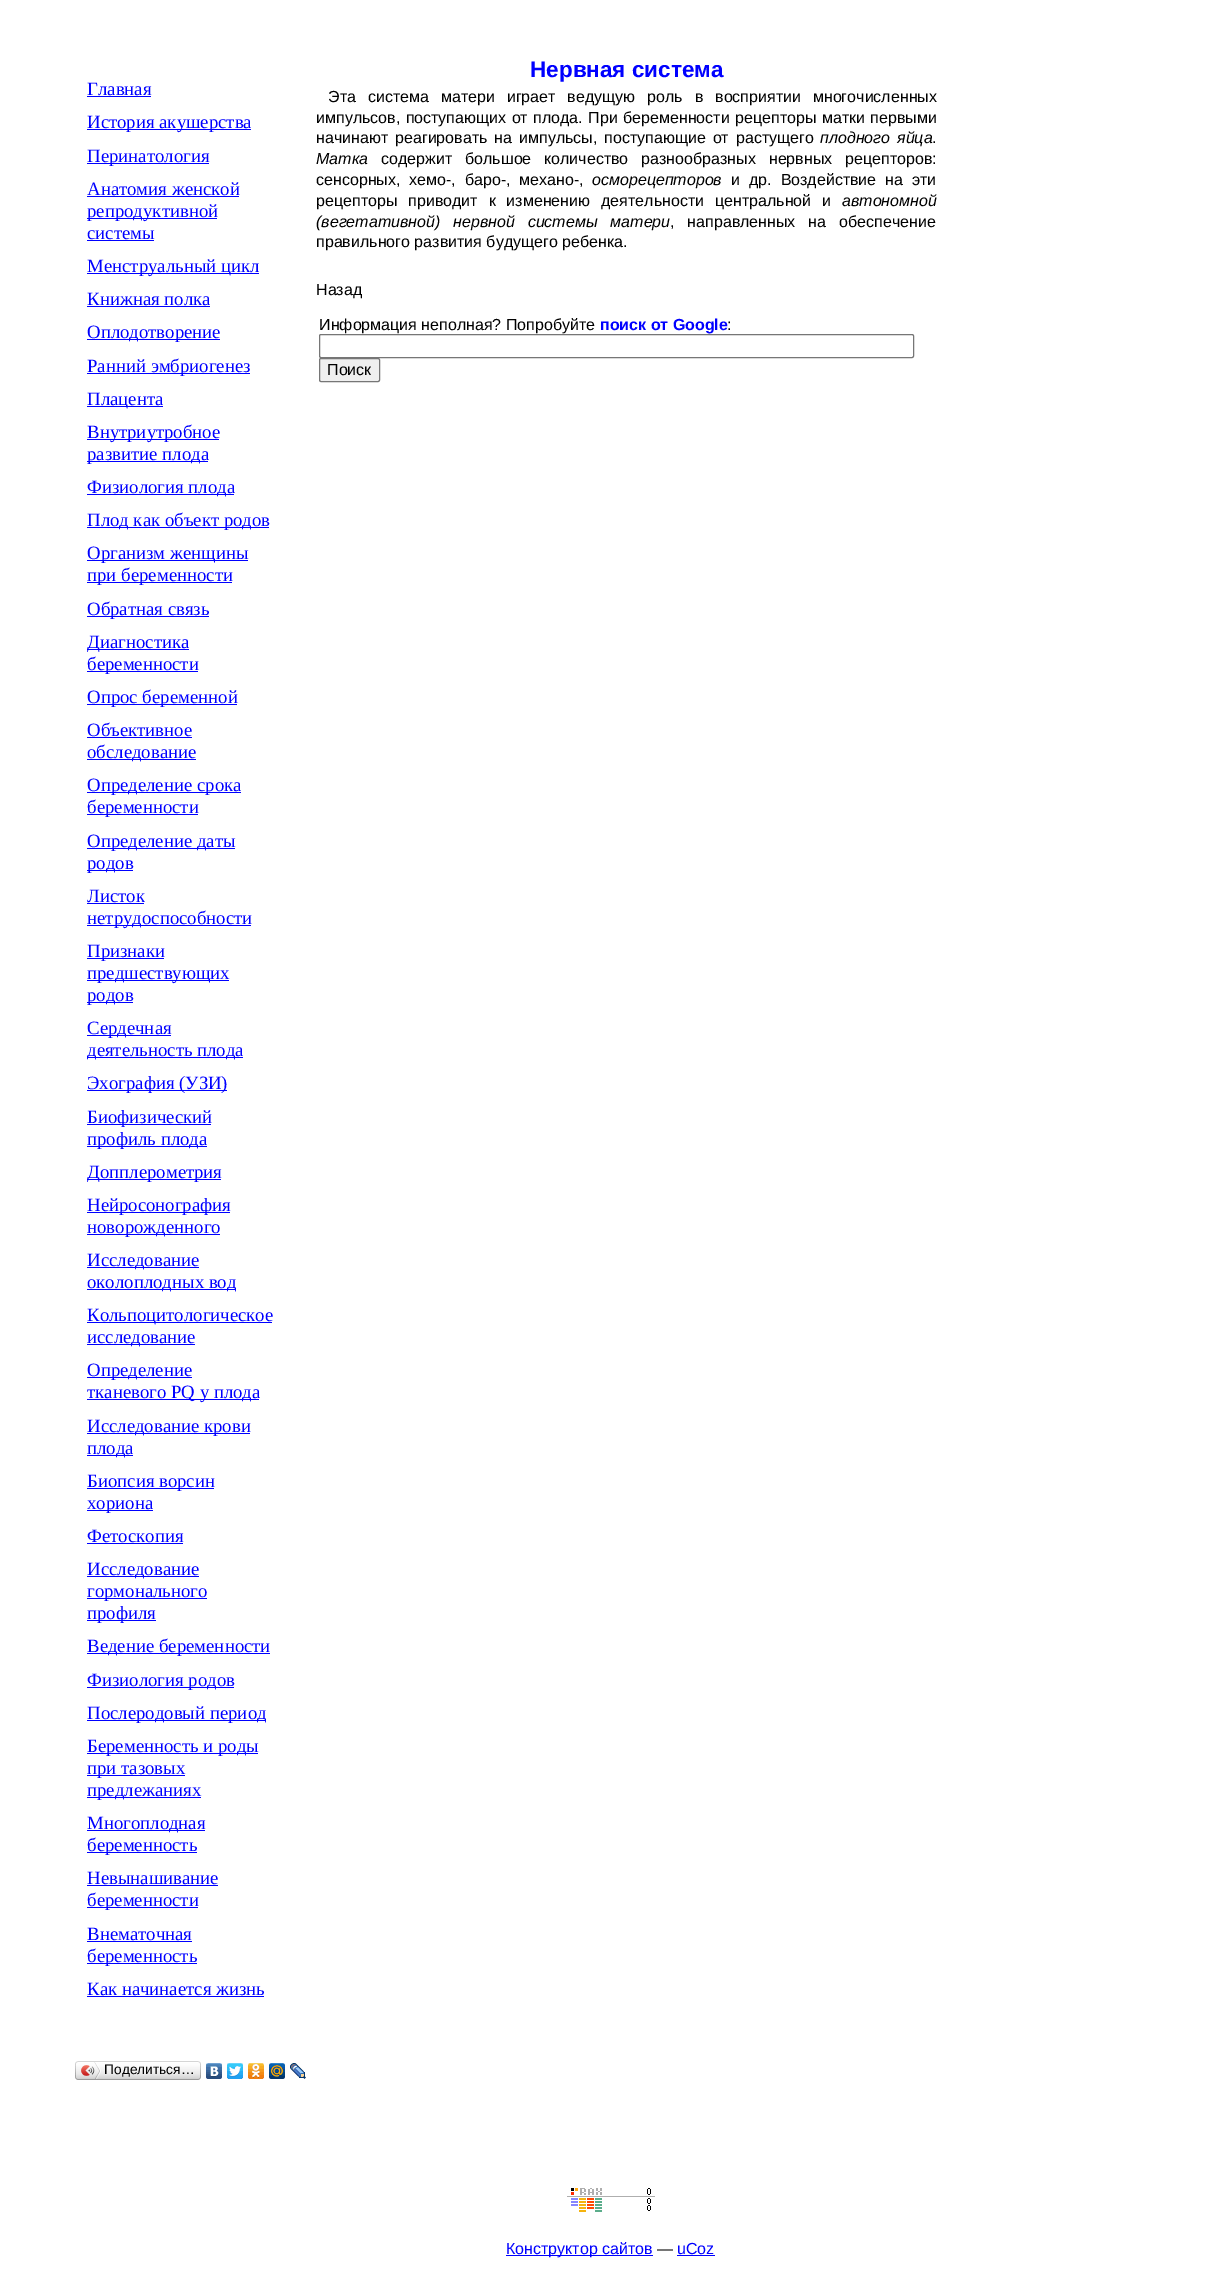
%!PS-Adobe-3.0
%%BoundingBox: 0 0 1221 2274
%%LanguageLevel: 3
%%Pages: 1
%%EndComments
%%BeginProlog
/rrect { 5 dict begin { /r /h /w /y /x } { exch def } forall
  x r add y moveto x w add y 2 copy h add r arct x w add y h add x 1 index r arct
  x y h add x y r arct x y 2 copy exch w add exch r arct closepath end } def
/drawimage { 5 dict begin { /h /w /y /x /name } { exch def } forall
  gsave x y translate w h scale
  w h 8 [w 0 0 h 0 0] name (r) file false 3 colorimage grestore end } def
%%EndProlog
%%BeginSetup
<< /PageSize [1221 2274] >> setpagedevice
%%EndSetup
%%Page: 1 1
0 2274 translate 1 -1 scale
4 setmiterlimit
1 setgray
0 0 1221 2274 rectfill
0 0 1 setrgbcolor
87 96 64 1 rectfill
87 129 164 1 rectfill
87 163 122 1 rectfill
87 196 152 1 rectfill
87 218 130 1 rectfill
87 240 67 1 rectfill
87 273 172 1 rectfill
87 306 123 1 rectfill
87 339 133 1 rectfill
87 373 163 1 rectfill
87 406 76 1 rectfill
87 439 132 1 rectfill
87 461 121 1 rectfill
87 494 147 1 rectfill
87 527 182 1 rectfill
87 560 161 1 rectfill
87 582 145 1 rectfill
87 616 122 1 rectfill
87 649 102 1 rectfill
87 671 111 1 rectfill
87 704 150 1 rectfill
87 737 105 1 rectfill
87 759 109 1 rectfill
87 792 154 1 rectfill
87 814 111 1 rectfill
87 848 148 1 rectfill
87 870 46 1 rectfill
87 903 57 1 rectfill
87 925 164 1 rectfill
87 958 77 1 rectfill
87 980 142 1 rectfill
87 1002 46 1 rectfill
87 1035 84 1 rectfill
87 1057 156 1 rectfill
87 1090 140 1 rectfill
87 1124 124 1 rectfill
87 1146 120 1 rectfill
87 1179 134 1 rectfill
87 1212 143 1 rectfill
87 1234 133 1 rectfill
87 1267 112 1 rectfill
87 1289 149 1 rectfill
87 1322 185 1 rectfill
87 1344 108 1 rectfill
87 1377 105 1 rectfill
87 1399 172 1 rectfill
87 1433 163 1 rectfill
87 1455 46 1 rectfill
87 1488 127 1 rectfill
87 1510 66 1 rectfill
87 1543 96 1 rectfill
87 1576 112 1 rectfill
87 1598 120 1 rectfill
87 1620 69 1 rectfill
87 1653 183 1 rectfill
87 1687 147 1 rectfill
87 1720 179 1 rectfill
87 1753 171 1 rectfill
87 1775 98 1 rectfill
87 1797 114 1 rectfill
87 1830 118 1 rectfill
87 1852 110 1 rectfill
87 1885 131 1 rectfill
87 1907 111 1 rectfill
87 1941 105 1 rectfill
87 1963 110 1 rectfill
87 1996 177 1 rectfill
0.463 setgray
319.5 334.5 594 23 1.5 rrect stroke
0.937 setgray
319.5 358.5 60 23 1.5 rrect gsave fill grestore
0.463 setgray
stroke
(images/1.raw) 78 2061 120 19 drawimage
(images/2.raw) 75 2061 3 19 drawimage
(images/3.raw) 81 2062 20 17 drawimage
(images/4.raw) 198 2061 3 19 drawimage
(images/5.raw) 206 2063 16 16 drawimage
(images/6.raw) 227 2063 16 16 drawimage
(images/7.raw) 248 2063 16 16 drawimage
(images/8.raw) 269 2063 16 16 drawimage
(images/9.raw) 290 2063 16 16 drawimage
(images/10.raw) 567 2188 88 24 drawimage
0 0 1 setrgbcolor
506 2255 147 1 rectfill
677 2255 38 1 rectfill
/LiberationSerif-Regular [18.75 0 0 -18.75 0 0] selectfont
87 95 moveto (Главная) show
87 128 moveto (История акушерства) show
87 162 moveto (Перинатология) show
87 195 moveto (Анатомия женской) show
87 217 moveto (репродуктивной) show
87 239 moveto (системы) show
87 272 moveto (Менструальный цикл) show
87 305 moveto (Книжная полка) show
87 338 moveto (Оплодотворение) show
87 372 moveto (Ранний эмбриогенез) show
87 405 moveto (Плацента) show
87 438 moveto (Внутриутробное) show
87 460 moveto (развитие плода) show
87 493 moveto (Физиология плода) show
87 526 moveto (Плод как объект родов) show
87 559 moveto (Организм женщины) show
87 581 moveto (при беременности) show
87 615 moveto (Обратная связь) show
87 648 moveto (Диагностика) show
87 670 moveto (беременности) show
87 703 moveto (Опрос беременной) show
87 736 moveto (Объективное) show
87 758 moveto (обследование) show
87 791 moveto (Определение срока) show
87 813 moveto (беременности) show
87 847 moveto (Определение даты) show
87 869 moveto (родов) show
87 902 moveto (Листок) show
87 924 moveto (нетрудоспособности) show
87 957 moveto (Признаки) show
87 979 moveto (предшествующих) show
87 1001 moveto (родов) show
87 1034 moveto (Cердечная) show
87 1056 moveto (деятельность плода) show
87 1089 moveto (Эхография \(УЗИ\)) show
87 1123 moveto (Биофизический) show
87 1145 moveto (профиль плода) show
87 1178 moveto (Допплерометрия) show
87 1211 moveto (Нейросонография) show
87 1233 moveto (новорожденного) show
87 1266 moveto (Исследование) show
87 1288 moveto (околоплодных вод) show
87 1321 moveto (Кольпоцитологическое) show
87 1343 moveto (исследование) show
87 1376 moveto (Определение) show
87 1398 moveto (тканевого PQ у плода) show
87 1432 moveto (Исследование крови) show
87 1454 moveto (плода) show
87 1487 moveto (Биопсия ворсин) show
87 1509 moveto (хориона) show
87 1542 moveto (Фетоскопия) show
87 1575 moveto (Исследование) show
87 1597 moveto (гормонального) show
87 1619 moveto (профиля) show
87 1652 moveto (Ведение беременности) show
87 1686 moveto (Физиология родов) show
87 1719 moveto (Послеродовый период) show
87 1752 moveto (Беременность и роды) show
87 1774 moveto (при тазовых) show
87 1796 moveto (предлежаниях) show
87 1829 moveto (Многоплодная) show
87 1851 moveto (беременность) show
87 1884 moveto (Невынашивание) show
87 1906 moveto (беременности) show
87 1940 moveto (Внематочная) show
87 1962 moveto (беременность) show
87 1995 moveto (Как начинается жизнь) show
/LiberationSans-Bold [22.5 0 0 -22.5 0 0] selectfont
530 77 moveto (Нервная система) show
/LiberationSans-Regular [16 0 0 -16 0 0] selectfont
0 setgray
328 102 moveto 7.5 0 32 (Эта система матери играет ведущую роль в восприятии многочисленных) widthshow
316 123 moveto 1 0 32 (импульсов, поступающих от плода. При беременности рецепторы матки первыми) widthshow
316 143 moveto 2.5 0 32 (начинают реагировать на импульсы, поступающие от растущего) widthshow
/LiberationSans-Italic [16 0 0 -16 0 0] selectfont
820 143 moveto 2.5 0 32 (плодного яйца) widthshow
/LiberationSans-Regular [16 0 0 -16 0 0] selectfont
932 143 moveto (.) show
/LiberationSans-Italic [16 0 0 -16 0 0] selectfont
316 164 moveto (Матка) show
/LiberationSans-Regular [16 0 0 -16 0 0] selectfont
381 164 moveto 8.5 0 32 (содержит большое количество разнообразных нервных рецепторов:) widthshow
316 185 moveto 4.5 0 32 (сенсорных, хемо-, баро-, механо-,) widthshow
/LiberationSans-Italic [16 0 0 -16 0 0] selectfont
592 185 moveto (осморецепторов) show
/LiberationSans-Regular [16 0 0 -16 0 0] selectfont
731 185 moveto 4.5 0 32 (и др. Воздействие на эти) widthshow
316 206 moveto 6.5 0 32 (рецепторы приводит к изменению деятельности центральной и) widthshow
/LiberationSans-Italic [16 0 0 -16 0 0] selectfont
842 206 moveto (автономной) show
316 227 moveto 8.5 0 32 (\(вегетативной\) нервной системы матери) widthshow
/LiberationSans-Regular [16 0 0 -16 0 0] selectfont
670 227 moveto 8.5 0 32 (, направленных на обеспечение) widthshow
316 247 moveto (правильного развития будущего ребенка.) show
316 295 moveto (Назад) show
319 330 moveto (Информация неполная? Попробуйте) show
/LiberationSans-Bold [16 0 0 -16 0 0] selectfont
0 0 1 setrgbcolor
600 330 moveto (поиск от Google) show
/LiberationSans-Regular [16 0 0 -16 0 0] selectfont
0 setgray
727 330 moveto (:) show
327 375 moveto (Поиск) show
/LiberationSans-Regular [13.75 0 0 -13.75 0 0] selectfont
104 2074 moveto (Поделиться…) show
/LiberationSans-Regular [16 0 0 -16 0 0] selectfont
0 0 1 setrgbcolor
506 2254 moveto (Конструктор сайтов) show
0 setgray
657 2254 moveto (—) show
0 0 1 setrgbcolor
677 2254 moveto (uCoz) show
showpage
%%EOF
